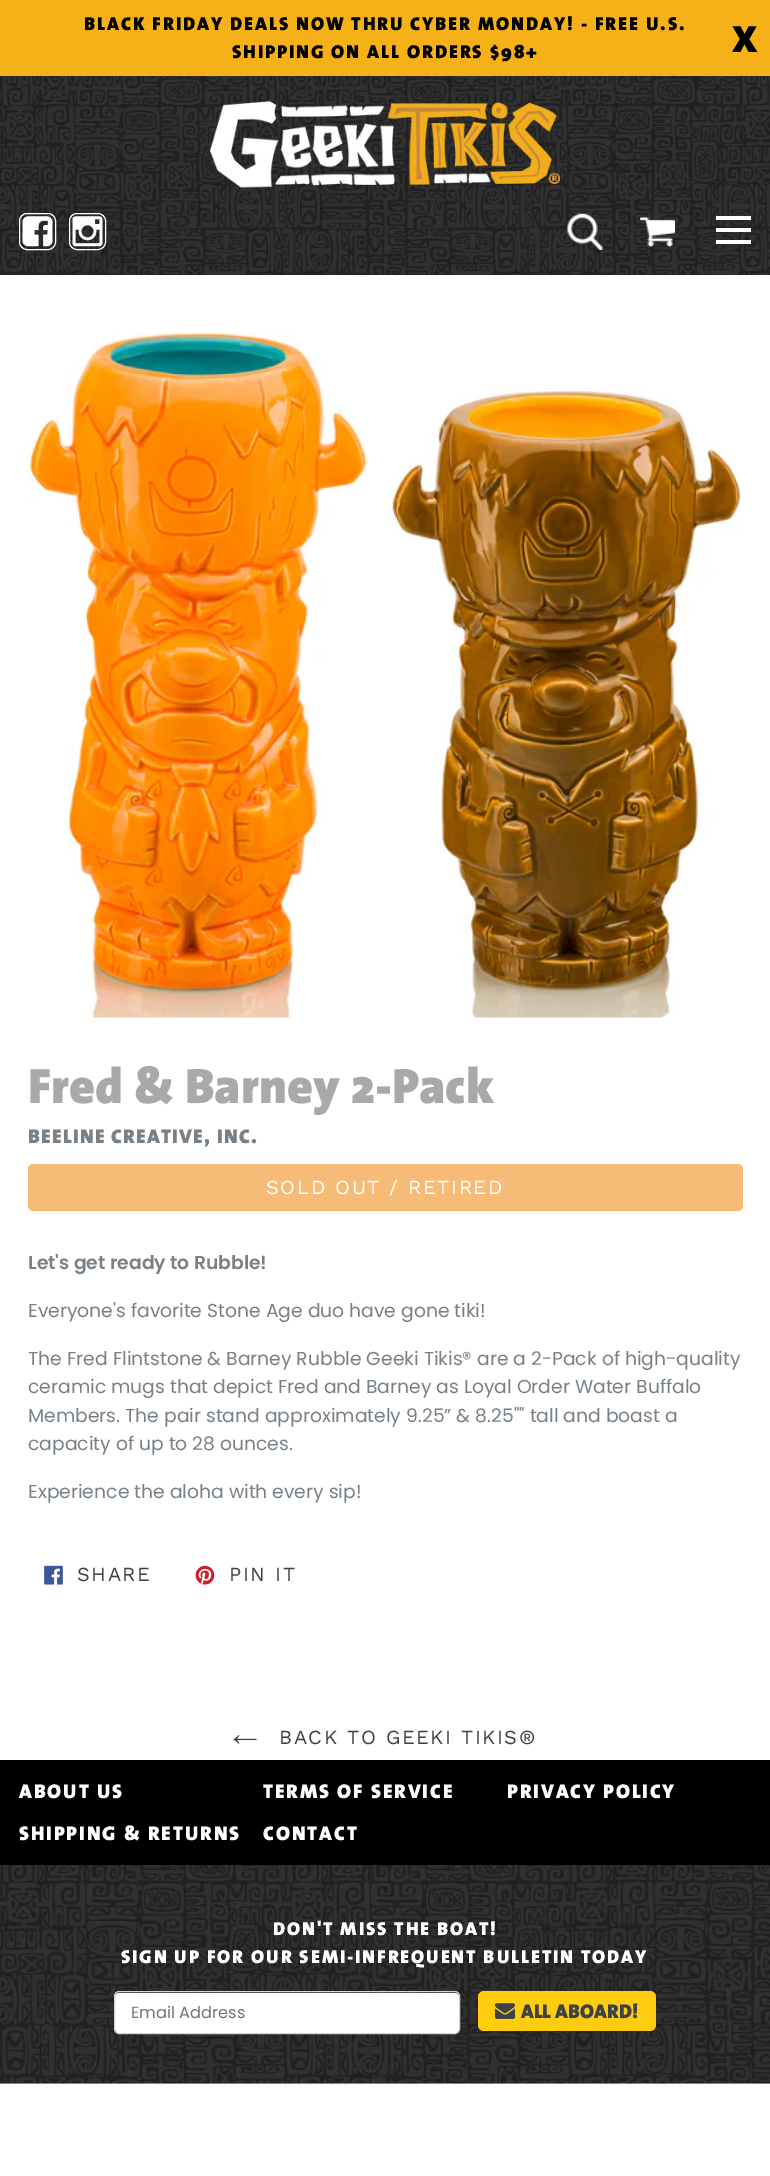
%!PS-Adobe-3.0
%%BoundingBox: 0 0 770 2176
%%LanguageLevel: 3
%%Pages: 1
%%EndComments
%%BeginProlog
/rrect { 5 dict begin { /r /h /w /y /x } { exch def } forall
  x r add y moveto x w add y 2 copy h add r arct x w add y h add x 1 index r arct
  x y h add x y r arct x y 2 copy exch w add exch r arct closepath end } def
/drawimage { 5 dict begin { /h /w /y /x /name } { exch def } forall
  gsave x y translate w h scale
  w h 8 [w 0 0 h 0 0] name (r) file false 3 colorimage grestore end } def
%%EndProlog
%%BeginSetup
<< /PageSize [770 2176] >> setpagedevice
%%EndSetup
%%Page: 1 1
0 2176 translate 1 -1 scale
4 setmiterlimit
1 setgray
0 0 770 2176 rectfill
(images/1.raw) 0 76 770 199 drawimage
0.965 0.694 0.094 setrgbcolor
0 0 770 76 rectfill
(images/2.raw) 210 101 350 87 drawimage
1 setgray
19.5 213.5 36 36 7.5 rrect stroke
(images/3.raw) 22 216 31 31 drawimage
69.5 213.5 36 36 7.5 rrect stroke
(images/4.raw) 72 216 31 31 drawimage
(images/5.raw) 567 213 36 37 drawimage
(images/6.raw) 640 217 35 30 drawimage
716 216 35 4 rectfill
716 228 35 4 rectfill
716 240 35 4 rectfill
(images/7.raw) 27 332 716 686 drawimage
0.969 0.733 0.471 setrgbcolor
28 1164 715 47 5 rrect fill
(images/8.raw) 44 1565 19 20 drawimage
(images/9.raw) 195 1565 20 20 drawimage
(images/10.raw) 233 1735 24 9 drawimage
(images/11.raw) 0 1865 770 219 drawimage
0 setgray
0 1760 770 105 rectfill
1 setgray
115 1993 344 40 4 rrect fill
0.808 0.831 0.855 setrgbcolor
114.5 1991.5 345 42 4.5 rrect stroke
1 0.8 0.059 setrgbcolor
478 1991 178 40 6 rrect fill
(images/12.raw) 495 2003 20 16 drawimage
/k-Black [18.75 0 0 -18.75 0 0] selectfont
0 setgray
84 30 moveto 1.88 0 (BLACK FRIDAY DEALS NOW THRU CYBER MONDAY! - FREE U.S.) ashow
232 58 moveto 1.88 0 (SHIPPING ON ALL ORDERS $98+) ashow
/k-Black [38 0 0 -38 0 0] selectfont
732 52 moveto (X) show
/k-Black [50 0 0 -50 0 0] selectfont
0.663 setgray
28 1103 moveto (Fred & Barney 2-Pack) show
/k-Black [20 0 0 -20 0 0] selectfont
0.471 0.506 0.533 setrgbcolor
28 1143 moveto 1.25 0 (BEELINE CREATIVE, INC.) ashow
/WorkSans-Regular [20 0 0 -20 0 0] selectfont
1 setgray
266 1194 moveto 1.6 0 (SOLD OUT / RETIRED) ashow
/Poppins-SemiBold [18.75 0 0 -18.75 0 0] selectfont
0.471 0.506 0.533 setrgbcolor
28 1269 moveto (Let's get ready to Rubble!) show
/Poppins-Regular [18.75 0 0 -18.75 0 0] selectfont
28 1317 moveto (Everyone's favorite Stone Age duo have gone tiki!) show
28 1365 moveto (The Fred Flintstone & Barney Rubble Geeki Tikis® are a 2-Pack of high-quality) show
28 1393 moveto (ceramic mugs that depict Fred and Barney as Loyal Order Water Buffalo) show
28 1422 moveto (Members. The pair stand approximately 9.25” & 8.25"" tall and boast a) show
28 1450 moveto (capacity of up to 28 ounces.) show
28 1498 moveto (Experience the aloha with every sip!) show
/WorkSans-Regular [20 0 0 -20 0 0] selectfont
0.239 0.259 0.275 setrgbcolor
77 1581 moveto 1.6 0 (SHARE) ashow
229 1581 moveto 1.6 0 (PIN IT) ashow
279 1744 moveto 1.6 0 (BACK TO GEEKI TIKIS®) ashow
/k-Black [20 0 0 -20 0 0] selectfont
1 setgray
19 1798 moveto 1.88 0 (ABOUT US) ashow
263 1798 moveto 1.88 0 (TERMS OF SERVICE) ashow
507 1798 moveto 1.88 0 (PRIVACY POLICY) ashow
19 1840 moveto 1.88 0 (SHIPPING & RETURNS) ashow
263 1840 moveto 1.88 0 (CONTACT) ashow
/k-Black [18.75 0 0 -18.75 0 0] selectfont
273 1935 moveto 1.88 0 (DON'T MISS THE BOAT!) ashow
121 1963 moveto 1.88 0 (SIGN UP FOR OUR SEMI-INFREQUENT BULLETIN TODAY) ashow
/Poppins-Regular [16.25 0 0 -16.25 0 0] selectfont
0.424 0.459 0.49 setrgbcolor
131 2018 moveto (Email Address) show
/k-Black [20 0 0 -20 0 0] selectfont
0.239 0.259 0.275 setrgbcolor
521 2018 moveto (ALL ABOARD!) show
showpage
%%EOF
